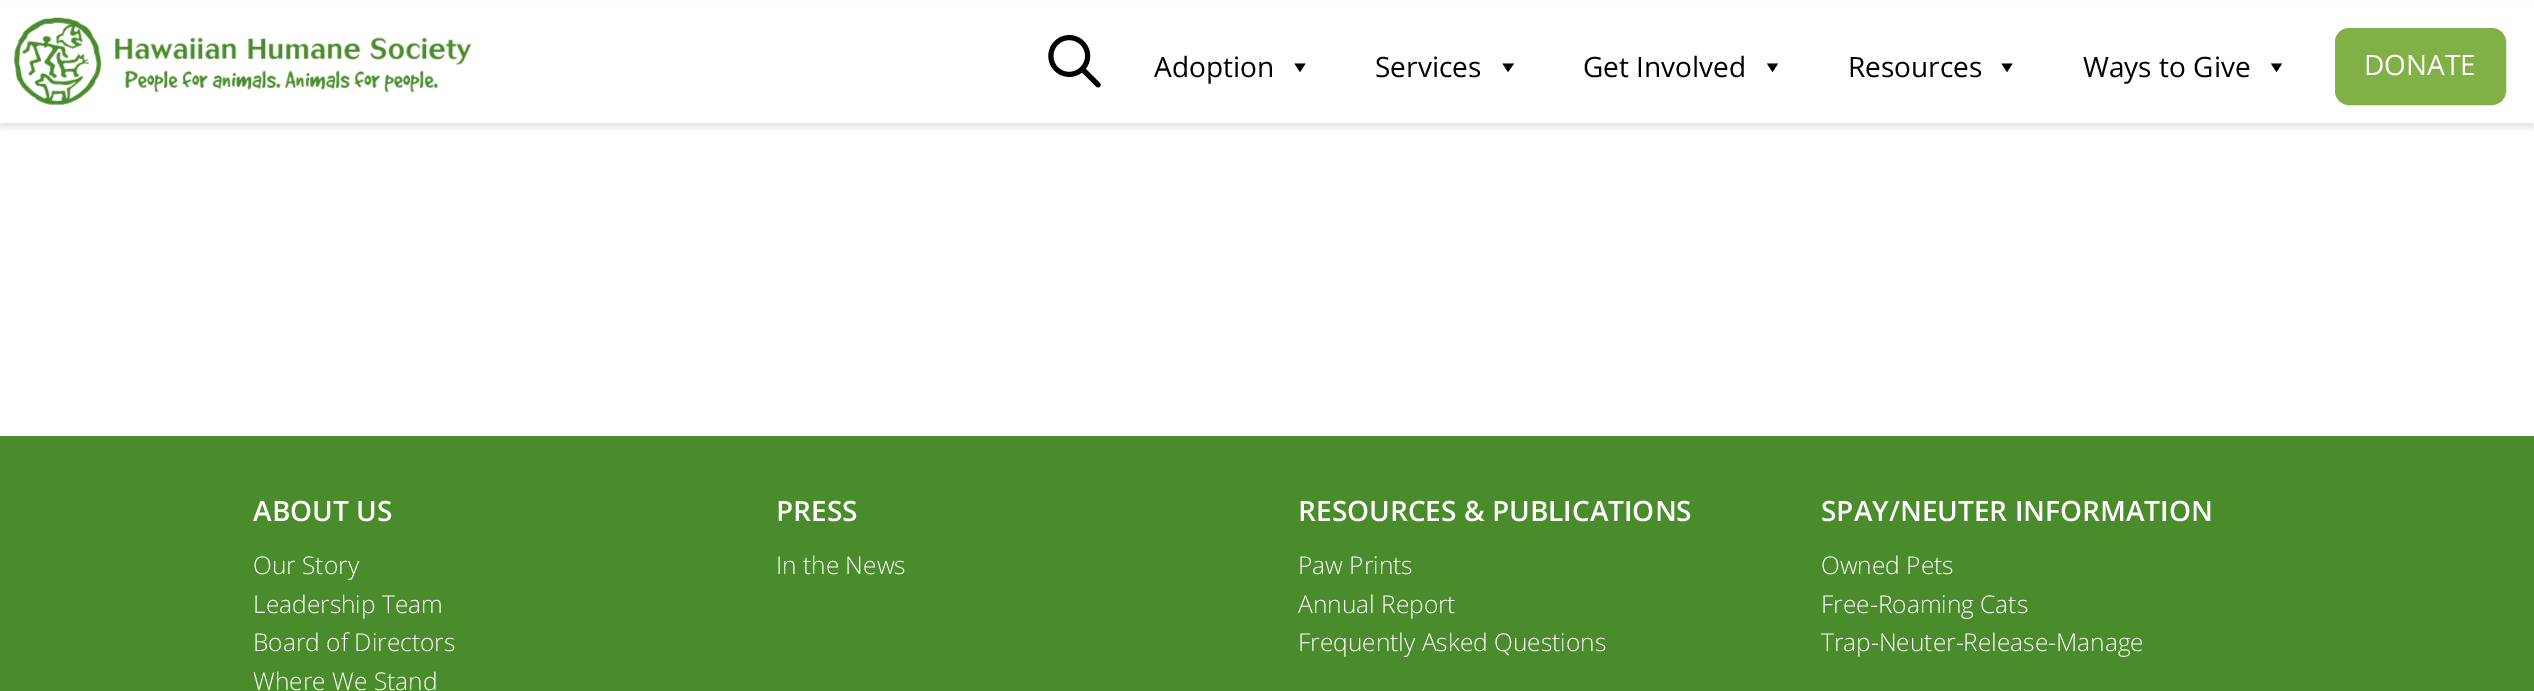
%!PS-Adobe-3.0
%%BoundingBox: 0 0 2534 691
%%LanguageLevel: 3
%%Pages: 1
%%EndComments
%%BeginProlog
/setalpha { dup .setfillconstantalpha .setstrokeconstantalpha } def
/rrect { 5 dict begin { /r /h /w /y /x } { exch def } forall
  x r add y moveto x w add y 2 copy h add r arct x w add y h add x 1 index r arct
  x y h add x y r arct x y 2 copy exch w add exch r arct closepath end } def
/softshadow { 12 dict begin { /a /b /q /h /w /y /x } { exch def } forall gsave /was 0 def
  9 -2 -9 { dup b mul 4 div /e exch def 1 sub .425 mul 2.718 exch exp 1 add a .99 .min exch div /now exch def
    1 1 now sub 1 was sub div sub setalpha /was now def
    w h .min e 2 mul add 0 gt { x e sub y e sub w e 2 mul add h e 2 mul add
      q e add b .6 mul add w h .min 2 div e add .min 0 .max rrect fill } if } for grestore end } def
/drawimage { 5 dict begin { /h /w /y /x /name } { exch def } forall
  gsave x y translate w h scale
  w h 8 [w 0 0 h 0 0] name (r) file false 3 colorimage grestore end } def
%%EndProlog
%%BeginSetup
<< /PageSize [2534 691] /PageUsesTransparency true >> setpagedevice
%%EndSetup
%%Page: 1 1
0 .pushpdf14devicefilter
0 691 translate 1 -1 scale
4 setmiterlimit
1 setgray
0 0 2534 691 rectfill
0 setgray
0 5 2534 123 0 3 0.1 softshadow
1 setgray
0 1 2534 122 rectfill
(images/1.raw) 14 17 458 88 drawimage
(images/2.raw) 1048 35 53 53 drawimage
0 setgray
newpath 1305.5 63.5 moveto 1300 72 lineto 1294.5 63.5 lineto closepath fill
newpath 1514 63.5 moveto 1508 72 lineto 1502.5 63.5 lineto closepath fill
newpath 1778 63.5 moveto 1772.5 72 lineto 1767 63.5 lineto closepath fill
newpath 2012.5 63.5 moveto 2007 72 lineto 2001.5 63.5 lineto closepath fill
newpath 2282 63.5 moveto 2276.5 72 lineto 2271 63.5 lineto closepath fill
0.502 0.69 0.275 setrgbcolor
2336 29 169 75 13 rrect gsave fill grestore
2 setlinewidth
stroke
0.29 0.545 0.173 setrgbcolor
0 436 2534 255 rectfill
/OpenSans-Regular [28 0 0 -28 0 0] selectfont
0 setgray
1154 77 moveto (Adoption) show
1375 77 moveto (Services) show
1583 77 moveto (Get Involved) show
1848 77 moveto (Resources) show
2083 77 moveto (Ways to Give) show
1 setgray
2364 75 moveto (DONATE) show
/OpenSans-SemiBold [28 0 0 -28 0 0] selectfont
253 521 moveto (ABOUT US) show
/OpenSans-Light [24.5 0 0 -24.5 0 0] selectfont
253 574 moveto (Our Story) show
253 613 moveto (Leadership Team) show
253 651 moveto (Board of Directors) show
253 690 moveto (Where We Stand) show
/OpenSans-SemiBold [28 0 0 -28 0 0] selectfont
776 521 moveto (PRESS) show
/OpenSans-Light [24.5 0 0 -24.5 0 0] selectfont
776 574 moveto (In the News) show
/OpenSans-SemiBold [28 0 0 -28 0 0] selectfont
1298 521 moveto (RESOURCES & PUBLICATIONS) show
/OpenSans-Light [24.5 0 0 -24.5 0 0] selectfont
1298 574 moveto (Paw Prints) show
1298 613 moveto (Annual Report) show
1298 651 moveto (Frequently Asked Questions) show
/OpenSans-SemiBold [28 0 0 -28 0 0] selectfont
1821 521 moveto (SPAY/NEUTER INFORMATION) show
/OpenSans-Light [24.5 0 0 -24.5 0 0] selectfont
1821 574 moveto (Owned Pets) show
1821 613 moveto (Free-Roaming Cats) show
1821 651 moveto (Trap-Neuter-Release-Manage) show
.poppdf14devicefilter showpage
%%EOF
